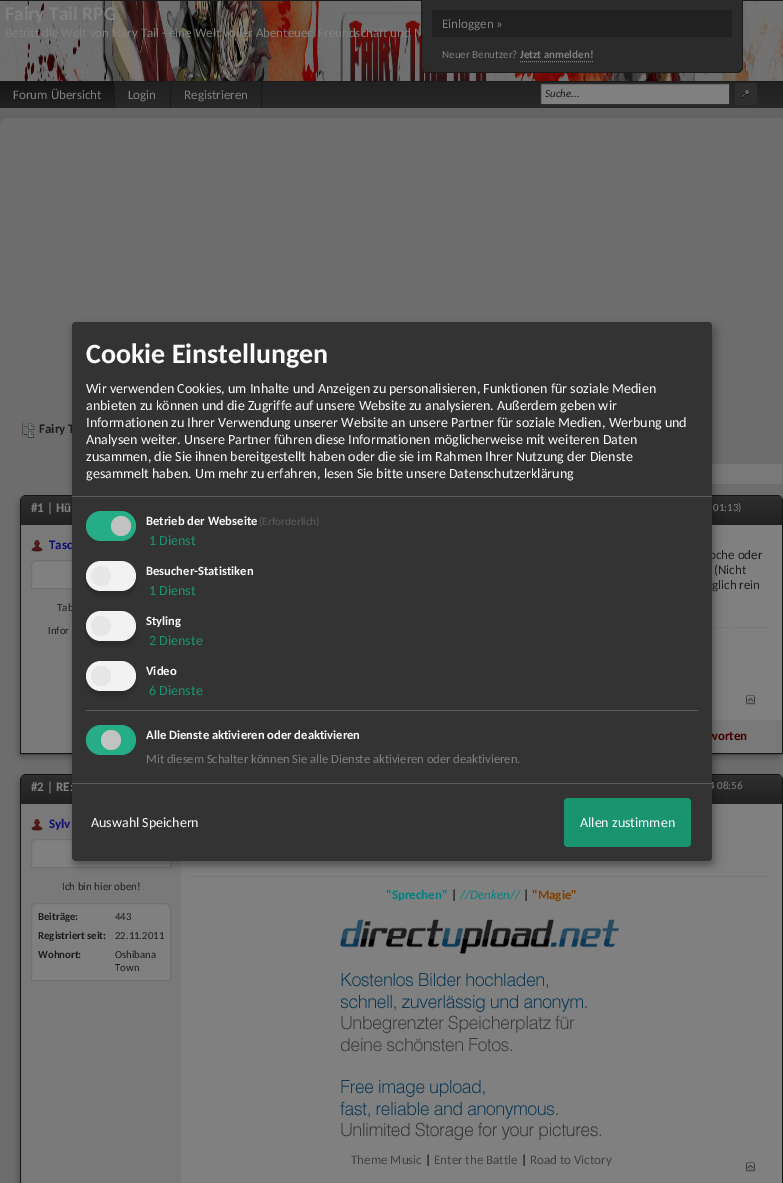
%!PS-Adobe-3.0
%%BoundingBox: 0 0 783 1183
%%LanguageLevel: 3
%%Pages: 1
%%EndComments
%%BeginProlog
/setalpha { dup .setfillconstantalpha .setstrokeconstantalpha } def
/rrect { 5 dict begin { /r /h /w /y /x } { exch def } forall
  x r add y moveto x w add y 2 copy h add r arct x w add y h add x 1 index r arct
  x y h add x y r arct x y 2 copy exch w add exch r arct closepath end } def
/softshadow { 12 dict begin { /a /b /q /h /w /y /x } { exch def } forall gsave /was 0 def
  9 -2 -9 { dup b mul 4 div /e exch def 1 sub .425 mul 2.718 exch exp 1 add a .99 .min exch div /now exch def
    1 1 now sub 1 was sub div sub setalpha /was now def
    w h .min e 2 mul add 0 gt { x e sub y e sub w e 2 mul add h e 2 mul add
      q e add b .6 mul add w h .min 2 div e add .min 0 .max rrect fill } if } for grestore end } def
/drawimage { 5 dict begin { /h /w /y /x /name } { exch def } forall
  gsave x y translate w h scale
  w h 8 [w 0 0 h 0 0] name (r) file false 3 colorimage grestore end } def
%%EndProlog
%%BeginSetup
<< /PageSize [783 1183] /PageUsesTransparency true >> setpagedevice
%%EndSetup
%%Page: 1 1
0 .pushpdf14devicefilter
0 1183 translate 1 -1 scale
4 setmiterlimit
0.392 setgray
0 0 783 1183 rectfill
0.106 setgray
0 0 783 1 rectfill
(images/1.raw) 0 1 783 80 drawimage
gsave newpath 115 82 moveto 783 82 lineto 783 108 lineto 115 108 lineto closepath clip newpath
<< /ShadingType 2 /ColorSpace /DeviceRGB /Coords [0 81 0 108] /Extend [true true] /Function << /FunctionType 2 /Domain [0 1] /C0 [0.129 0.129 0.129] /C1 [0.157 0.157 0.157] /N 1 >> >> shfill grestore
115 81 668 1 rectfill
gsave newpath 0 81 moveto 114 81 lineto 114 108 lineto 0 108 lineto closepath clip newpath
<< /ShadingType 2 /ColorSpace /DeviceRGB /Coords [0 81 0 108] /Extend [true true] /Function << /FunctionType 2 /Domain [0 1] /C0 [0.082 0.082 0.082] /C1 [0.129 0.129 0.129] /N 1 >> >> shfill grestore
114 81 1 27 rectfill
261 81 1 27 rectfill
170 81 1 27 rectfill
0.502 setgray
newpath 540.5 83.5 moveto 729.5 83.5 lineto 729.5 104.5 lineto 540.5 104.5 lineto closepath gsave fill grestore
0.18 setgray
stroke
735 83 22 22 rectfill
(images/2.raw) 740 90 10 9 drawimage
0.427 setgray
0 118 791 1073 8 rrect fill
0.475 setgray
712 464 70 20 rectfill
gsave
newpath 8 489 moveto 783 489 lineto 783 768 lineto 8 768 lineto closepath 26 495 moveto 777 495 lineto 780.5 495 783 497.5 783 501 curveto 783 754 lineto 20 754 lineto 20 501 lineto 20 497.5 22.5 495 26 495 curveto closepath eoclip newpath
0.325 setgray
18 499 763 259 6 3 1 softshadow
grestore
0.082 setgray
newpath 26 495.5 moveto 777 495.5 lineto 780 495.5 782.5 498 782.5 501 curveto 782.5 753.5 lineto 20.5 753.5 lineto 20.5 501 lineto 20.5 498 23 495.5 26 495.5 curveto closepath stroke
gsave newpath 26 496 moveto 777 496 lineto 780 496 782 498 782 501 curveto 782 525 lineto 21 525 lineto 21 501 lineto 21 498 23 496 26 496 curveto closepath clip newpath
<< /ShadingType 2 /ColorSpace /DeviceRGB /Coords [21 496 21 525] /Extend [true true] /Function << /FunctionType 2 /Domain [0 1] /C0 [0.18 0.18 0.18] /C1 [0.129 0.129 0.129] /N 1 >> >> shfill grestore
0.502 setgray
712 525 70 195 rectfill
0.475 setgray
21 525 51 195 rectfill
0.502 setgray
newpath 37 560.5 moveto 165 560.5 lineto 168 560.5 170.5 563 170.5 566 curveto 170.5 588.5 lineto 31.5 588.5 lineto 31.5 566 lineto 31.5 563 34 560.5 37 560.5 curveto closepath gsave fill grestore
0.439 setgray
stroke
0.475 setgray
712 627 60 1 rectfill
21 720 761 33 rectfill
gsave
newpath 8 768 moveto 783 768 lineto 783 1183 lineto 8 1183 lineto closepath 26 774 moveto 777 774 lineto 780.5 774 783 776.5 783 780 curveto 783 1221 lineto 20 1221 lineto 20 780 lineto 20 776.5 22.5 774 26 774 curveto closepath eoclip newpath
0.325 setgray
18 778 763 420 6 3 1 softshadow
grestore
0.082 setgray
newpath 26 774.5 moveto 777 774.5 lineto 780 774.5 782.5 777 782.5 780 curveto 782.5 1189.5 lineto 20.5 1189.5 lineto 20.5 780 lineto 20.5 777 23 774.5 26 774.5 curveto closepath stroke
gsave newpath 26 775 moveto 777 775 lineto 780 775 782 777 782 780 curveto 782 804 lineto 21 804 lineto 21 780 lineto 21 777 23 775 26 775 curveto closepath clip newpath
<< /ShadingType 2 /ColorSpace /DeviceRGB /Coords [21 775 21 804] /Extend [true true] /Function << /FunctionType 2 /Domain [0 1] /C0 [0.18 0.18 0.18] /C1 [0.129 0.129 0.129] /N 1 >> >> shfill grestore
0.502 setgray
181 804 601 379 rectfill
0.475 setgray
21 804 160 379 rectfill
0.502 setgray
newpath 37 839.5 moveto 165 839.5 lineto 168 839.5 170.5 842 170.5 845 curveto 170.5 867.5 lineto 31.5 867.5 lineto 31.5 845 lineto 31.5 842 34 839.5 37 839.5 curveto closepath gsave fill grestore
0.439 setgray
stroke
0.475 setgray
191 876 581 1 rectfill
0 setgray
77 327 640 539 4 5 0.19 softshadow
72 326 640 539 4 3 0.2 softshadow
(images/3.raw) 22 422 13 16 drawimage
(images/4.raw) 31 540 12 12 drawimage
(images/5.raw) 745 695 11 10 drawimage
(images/4.raw) 31 819 12 12 drawimage
0.502 setgray
newpath 37 903.5 moveto 165 903.5 lineto 168 903.5 170.5 906 170.5 909 curveto 170.5 980.5 lineto 31.5 980.5 lineto 31.5 909 lineto 31.5 906 34 903.5 37 903.5 curveto closepath gsave fill grestore
0.439 setgray
stroke
(images/6.raw) 340 919 279 221 drawimage
(images/5.raw) 745 1162 11 10 drawimage
/Carlito-Bold [19.5 0 0 -19.5 0 0] selectfont
0.502 setgray
5 20 moveto (Fairy Tail RPG) show
/Carlito-Regular [13 0 0 -13 0 0] selectfont
5 37 moveto (Betritt die Welt von Fairy Tail - eine Welt voller Abenteuer, Freundschaft und M) show
13 99 moveto (Forum Übersicht) show
128 99 moveto (Login) show
184 99 moveto (Registrieren) show
/Carlito-Italic [11 0 0 -11 0 0] selectfont
0.11 setgray
545 97 moveto (Suche...) show
0.169 setgray
newpath 421 0 moveto 743 0 lineto 743 67 lineto 743 70.5 740.5 73 737 73 curveto 427 73 lineto 423.5 73 421 70.5 421 67 curveto closepath fill
0.106 setgray
newpath 421 0 moveto 743 0 lineto 743 67 lineto 743 70 740 73 737 73 curveto 427 73 lineto 424 73 421 70 421 67 curveto closepath 422 0 moveto 742 0 lineto 742 67 lineto 742 70 740 72 737 72 curveto 427 72 lineto 424 72 422 70 422 67 curveto closepath eofill
0.129 setgray
432 10 300 27 rectfill
/Carlito-Regular [13 0 0 -13 0 0] selectfont
0.502 setgray
442 28 moveto (Einloggen ») show
/Carlito-Regular [11 0 0 -11 0 0] selectfont
442 58 moveto (Neuer Benutzer?) show
/Carlito-Bold [11 0 0 -11 0 0] selectfont
520 58 moveto (Jetzt anmelden!) show
[1 1] 0 setdash
newpath 520 61.5 moveto 593 61.5 lineto stroke
/Carlito-Bold [13 0 0 -13 0 0] selectfont
0.11 setgray
39 433 moveto (Fairy T) show
0.502 setgray
31 512 moveto (#1) show
/Carlito-Regular [13 0 0 -13 0 0] selectfont
47 512 moveto (|) show
/Carlito-Bold [13 0 0 -13 0 0] selectfont
56 512 moveto (Hü) show
/Carlito-Regular [11 0 0 -11 0 0] selectfont
713 511 moveto (01:13\)) show
/Carlito-Bold [13 0 0 -13 0 0] selectfont
0.055 0.055 0.451 setrgbcolor
49 549 moveto (Tasc) show
/Carlito-Regular [11 0 0 -11 0 0] selectfont
0.11 setgray
57 611 moveto (Tab) show
/Carlito-Regular [10.75 0 0 -10.75 0 0] selectfont
48 634 moveto (Infor) show
/Carlito-Regular [13 0 0 -13 0 0] selectfont
709 559 moveto (oche oder) show
714 574 moveto (\(Nicht) show
712 589 moveto (glich rein) show
/Carlito-Bold [13 0 0 -13 0 0] selectfont
0.263 0 0 setrgbcolor
708 740 moveto (worten) show
0.502 setgray
31 791 moveto (#2) show
/Carlito-Regular [13 0 0 -13 0 0] selectfont
47 791 moveto (|) show
/Carlito-Bold [13 0 0 -13 0 0] selectfont
56 791 moveto (RE:) show
/Carlito-Regular [11 0 0 -11 0 0] selectfont
709 789 moveto (4 08:56) show
0.2 setgray
72 322 640 539 4 rrect fill
0.153 0.678 0.522 setrgbcolor
86 725 50 30 15 rrect fill
0.761 setgray
newpath 111 740 10 0 360 arc closepath fill
/Carlito-Regular [12.6 0 0 -12.6 0 0] selectfont
0.502 setgray
146 763 moveto (Mit diesem Schalter können Sie alle Dienste aktivieren oder deaktivieren.) show
/Carlito-Bold [12.6 0 0 -12.6 0 0] selectfont
0.98 setgray
146 739 moveto (Alle Dienste aktivieren oder deaktivieren) show
0.361 setgray
86 710 612 1 rectfill
0 setgray
86 665 50 30 15 3 0.2 softshadow
0.949 setgray
86 661 50 30 15 rrect fill
0.902 setgray
newpath 101 676 10 0 360 arc closepath fill
/Carlito-Regular [14 0 0 -14 0 0] selectfont
0.102 0.576 0.435 setrgbcolor
149 695 moveto (6 Dienste) show
/Carlito-Bold [12.6 0 0 -12.6 0 0] selectfont
0.98 setgray
146 675 moveto (Video) show
0 setgray
86 615 50 30 15 3 0.2 softshadow
0.949 setgray
86 611 50 30 15 rrect fill
0.902 setgray
newpath 101 626 10 0 360 arc closepath fill
/Carlito-Regular [14 0 0 -14 0 0] selectfont
0.102 0.576 0.435 setrgbcolor
149 645 moveto (2 Dienste) show
/Carlito-Bold [12.6 0 0 -12.6 0 0] selectfont
0.98 setgray
146 625 moveto (Styling) show
0 setgray
86 565 50 30 15 3 0.2 softshadow
0.949 setgray
86 561 50 30 15 rrect fill
0.902 setgray
newpath 101 576 10 0 360 arc closepath fill
/Carlito-Regular [14 0 0 -14 0 0] selectfont
0.102 0.576 0.435 setrgbcolor
149 595 moveto (1 Dienst) show
/Carlito-Bold [12.6 0 0 -12.6 0 0] selectfont
0.98 setgray
146 575 moveto (Besucher-Statistiken) show
0.153 0.678 0.522 setrgbcolor
86 511 50 30 15 rrect fill
0.761 setgray
newpath 121 526 10 0 360 arc closepath fill
/Carlito-Regular [14 0 0 -14 0 0] selectfont
0.102 0.576 0.435 setrgbcolor
149 545 moveto (1 Dienst) show
/Carlito-Regular [11.25 0 0 -11.25 0 0] selectfont
0.361 setgray
259 525 moveto (\(Erforderlich\)) show
/Carlito-Bold [12.6 0 0 -12.6 0 0] selectfont
0.98 setgray
146 525 moveto (Betrieb der Webseite) show
0.102 0.576 0.435 setrgbcolor
564 798 127 49 4 rrect fill
/Carlito-Regular [14 0 0 -14 0 0] selectfont
0.98 setgray
580 827 moveto (Allen zustimmen) show
91 827 moveto (Auswahl Speichern) show
86 478 moveto (gesammelt haben. Um mehr zu erfahren, lesen Sie bitte unsere Datenschutzerklärung) show
86 461 moveto (zusammen, die Sie ihnen bereitgestellt haben oder die sie im Rahmen Ihrer Nutzung der Dienste) show
86 444 moveto (Analysen weiter. Unsere Partner führen diese Informationen möglicherweise mit weiteren Daten) show
86 427 moveto (Informationen zu Ihrer Verwendung unserer Website an unsere Partner für soziale Medien, Werbung und) show
86 410 moveto (anbieten zu können und die Zugriffe auf unsere Website zu analysieren. Außerdem geben wir) show
86 393 moveto (Wir verwenden Cookies, um Inhalte und Anzeigen zu personalisieren, Funktionen für soziale Medien) show
/Carlito-Bold [28 0 0 -28 0 0] selectfont
86 363 moveto (Cookie Einstellungen) show
0.361 setgray
72 783 640 1 rectfill
72 496 640 1 rectfill
/Carlito-Bold [13 0 0 -13 0 0] selectfont
0.055 0.055 0.451 setrgbcolor
49 828 moveto (Sylv) show
/Carlito-Regular [11 0 0 -11 0 0] selectfont
0.11 setgray
62 890 moveto (Ich bin hier oben!) show
/Carlito-Bold [10.75 0 0 -10.75 0 0] selectfont
38 920 moveto (Beiträge:) show
/Carlito-Regular [10.75 0 0 -10.75 0 0] selectfont
115 920 moveto (443) show
/Carlito-Bold [10.75 0 0 -10.75 0 0] selectfont
38 939 moveto (Registriert seit:) show
/Carlito-Regular [10.75 0 0 -10.75 0 0] selectfont
115 939 moveto (22.11.2011) show
/Carlito-Bold [10.75 0 0 -10.75 0 0] selectfont
38 958 moveto (Wohnort:) show
/Carlito-Regular [10.75 0 0 -10.75 0 0] selectfont
115 958 moveto (Oshibana) show
115 971 moveto (Town) show
/Carlito-Bold [13 0 0 -13 0 0] selectfont
0 0.502 0.502 setrgbcolor
386 899 moveto ("Sprechen") show
0.11 setgray
451 899 moveto (|) show
/Carlito-Italic [13 0 0 -13 0 0] selectfont
0 0.502 0.502 setrgbcolor
460 899 moveto (//Denken//) show
/Carlito-Bold [13 0 0 -13 0 0] selectfont
0.11 setgray
523 899 moveto (|) show
0.502 0.251 0 setrgbcolor
532 899 moveto ("Magie") show
/Carlito-Regular [13 0 0 -13 0 0] selectfont
0.251 setgray
351 1164 moveto (Theme Music) show
/Carlito-Bold [13 0 0 -13 0 0] selectfont
0.11 setgray
425 1164 moveto (|) show
/Carlito-Regular [13 0 0 -13 0 0] selectfont
0.251 setgray
434 1164 moveto (Enter the Battle) show
/Carlito-Bold [13 0 0 -13 0 0] selectfont
0.11 setgray
521 1164 moveto (|) show
/Carlito-Regular [13 0 0 -13 0 0] selectfont
0.251 setgray
530 1164 moveto (Road to Victory) show
.poppdf14devicefilter showpage
%%EOF
